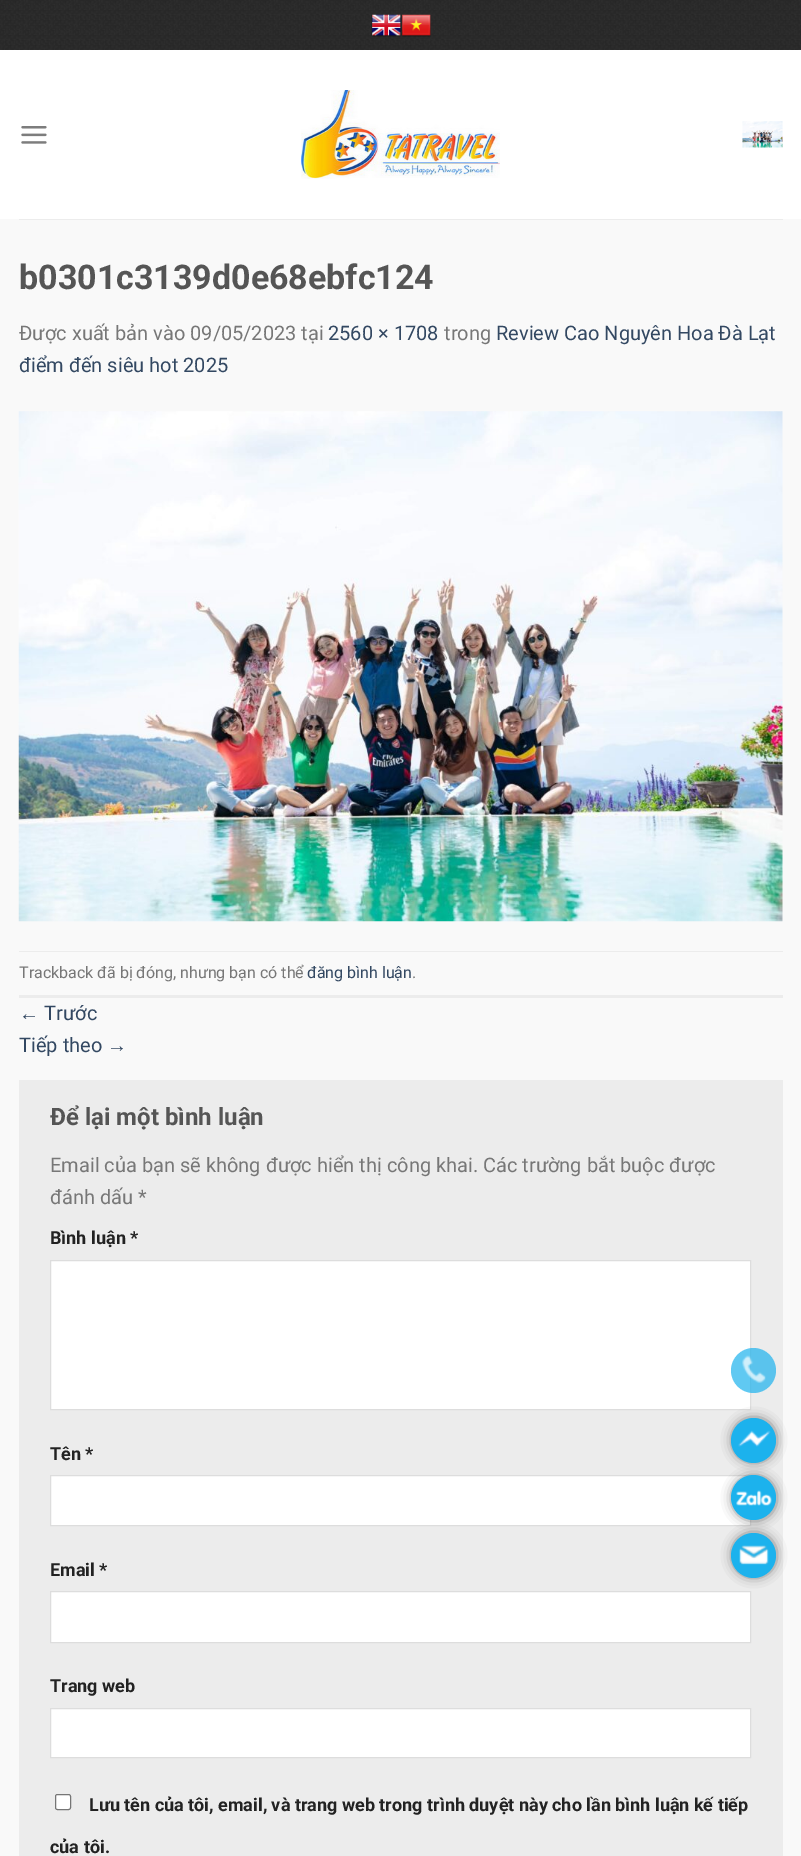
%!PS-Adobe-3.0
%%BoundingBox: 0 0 801 1856
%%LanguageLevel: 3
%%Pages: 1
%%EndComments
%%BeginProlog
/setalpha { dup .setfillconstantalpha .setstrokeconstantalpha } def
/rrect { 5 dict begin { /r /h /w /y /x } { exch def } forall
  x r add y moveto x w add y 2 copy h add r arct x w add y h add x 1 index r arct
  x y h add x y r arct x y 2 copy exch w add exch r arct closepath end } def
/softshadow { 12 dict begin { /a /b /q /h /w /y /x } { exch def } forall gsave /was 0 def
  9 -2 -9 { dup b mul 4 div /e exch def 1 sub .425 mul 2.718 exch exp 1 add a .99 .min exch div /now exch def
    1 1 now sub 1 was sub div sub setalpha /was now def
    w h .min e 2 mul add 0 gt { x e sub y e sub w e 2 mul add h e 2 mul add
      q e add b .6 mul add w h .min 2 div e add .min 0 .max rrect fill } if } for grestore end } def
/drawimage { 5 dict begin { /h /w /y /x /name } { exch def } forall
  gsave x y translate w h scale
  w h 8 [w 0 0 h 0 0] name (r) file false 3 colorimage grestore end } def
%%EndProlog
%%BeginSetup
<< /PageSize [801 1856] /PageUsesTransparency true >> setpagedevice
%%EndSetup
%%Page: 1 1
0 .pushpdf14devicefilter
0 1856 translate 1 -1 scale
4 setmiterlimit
1 setgray
0 0 801 1856 rectfill
(images/1.raw) 0 0 801 50 drawimage
(images/2.raw) 371 14 30 23 drawimage
(images/3.raw) 401 14 30 23 drawimage
(images/4.raw) 21 126 26 18 drawimage
(images/5.raw) 301 90 199 89 drawimage
(images/6.raw) 742 121 41 27 drawimage
0.976 setgray
0 219 801 1637 rectfill
0.925 setgray
19 219 764 1 rectfill
(images/7.raw) 18 411 765 511 drawimage
19 951 764 1 rectfill
19 995 764 3 rectfill
19 1080 764 776 rectfill
1 setgray
newpath 50.5 1260.5 moveto 750.5 1260.5 lineto 750.5 1409.5 lineto 50.5 1409.5 lineto closepath gsave fill grestore
0.867 setgray
stroke
1 setgray
newpath 50.5 1475.5 moveto 750.5 1475.5 lineto 750.5 1525.5 lineto 50.5 1525.5 lineto closepath gsave fill grestore
0.867 setgray
stroke
1 setgray
newpath 50.5 1591.5 moveto 750.5 1591.5 lineto 750.5 1642.5 lineto 50.5 1642.5 lineto closepath gsave fill grestore
0.867 setgray
stroke
1 setgray
newpath 50.5 1708.5 moveto 750.5 1708.5 lineto 750.5 1757.5 lineto 50.5 1757.5 lineto closepath gsave fill grestore
0.867 setgray
stroke
1 setgray
55.5 1794.5 15 15 2 rrect gsave fill grestore
0.463 setgray
stroke
0.7 setalpha
0.11 0.698 0.929 setrgbcolor
newpath 753.5 1370.5 22.5 0 360 arc closepath fill
1 setalpha
(images/8.raw) 742 1355 24 28 drawimage
0 setgray
734 1420 40 40 20 6 0.7 softshadow
0.11 0.698 0.929 setrgbcolor
newpath 753.5 1440.5 22.5 0 360 arc closepath fill
(images/9.raw) 738 1430 33 17 drawimage
0 setgray
734 1478 40 40 20 6 0.7 softshadow
0.11 0.698 0.929 setrgbcolor
newpath 753.5 1497.5 22.5 0 360 arc closepath fill
(images/10.raw) 736 1490 36 16 drawimage
0 setgray
734 1535 40 40 20 6 0.7 softshadow
0.11 0.698 0.929 setrgbcolor
newpath 753.5 1555.5 22.5 0 360 arc closepath fill
(images/11.raw) 739 1545 30 20 drawimage
/Roboto-Bold [34 0 0 -34 0 0] selectfont
0.333 setgray
19 289 moveto (b0301c3139d0e68ebfc124) show
/Roboto-Regular [20 0 0 -20 0 0] selectfont
0.467 setgray
19 340 moveto (Được xuất bản vào 09/05/2023 tại) show
0.2 0.282 0.384 setrgbcolor
328 340 moveto (2560 × 1708) show
0.467 setgray
444 340 moveto (trong) show
0.2 0.282 0.384 setrgbcolor
496 340 moveto (Review Cao Nguyên Hoa Đà Lạt) show
19 372 moveto (điểm đến siêu hot 2025) show
/Roboto-Regular [16 0 0 -16 0 0] selectfont
0.467 setgray
19 978 moveto (Trackback đã bị đóng, nhưng bạn có thể) show
0.2 0.282 0.384 setrgbcolor
307 978 moveto (đăng bình luận) show
0.467 setgray
412 978 moveto (.) show
/LiberationSans-Regular [20 0 0 -20 0 0] selectfont
0.2 0.282 0.384 setrgbcolor
19 1020 moveto (←) show
/Roboto-Regular [20 0 0 -20 0 0] selectfont
44 1020 moveto (Trước) show
19 1052 moveto (Tiếp theo) show
/LiberationSans-Regular [20 0 0 -20 0 0] selectfont
107 1052 moveto (→) show
/Roboto-Bold [24 0 0 -24 0 0] selectfont
0.333 setgray
50 1125 moveto (Để lại một bình luận) show
/Roboto-Regular [20 0 0 -20 0 0] selectfont
0.467 setgray
50 1172 moveto (Email của bạn sẽ không được hiển thị công khai. Các trường bắt buộc được) show
50 1204 moveto (đánh dấu *) show
/Roboto-Bold [18 0 0 -18 0 0] selectfont
0.133 setgray
50 1244 moveto (Bình luận *) show
50 1460 moveto (Tên *) show
50 1576 moveto (Email *) show
50 1692 moveto (Trang web) show
89 1811 moveto (Lưu tên của tôi, email, và trang web trong trình duyệt này cho lần bình luận kế tiếp) show
50 1853 moveto (của tôi.) show
.poppdf14devicefilter showpage
%%EOF
